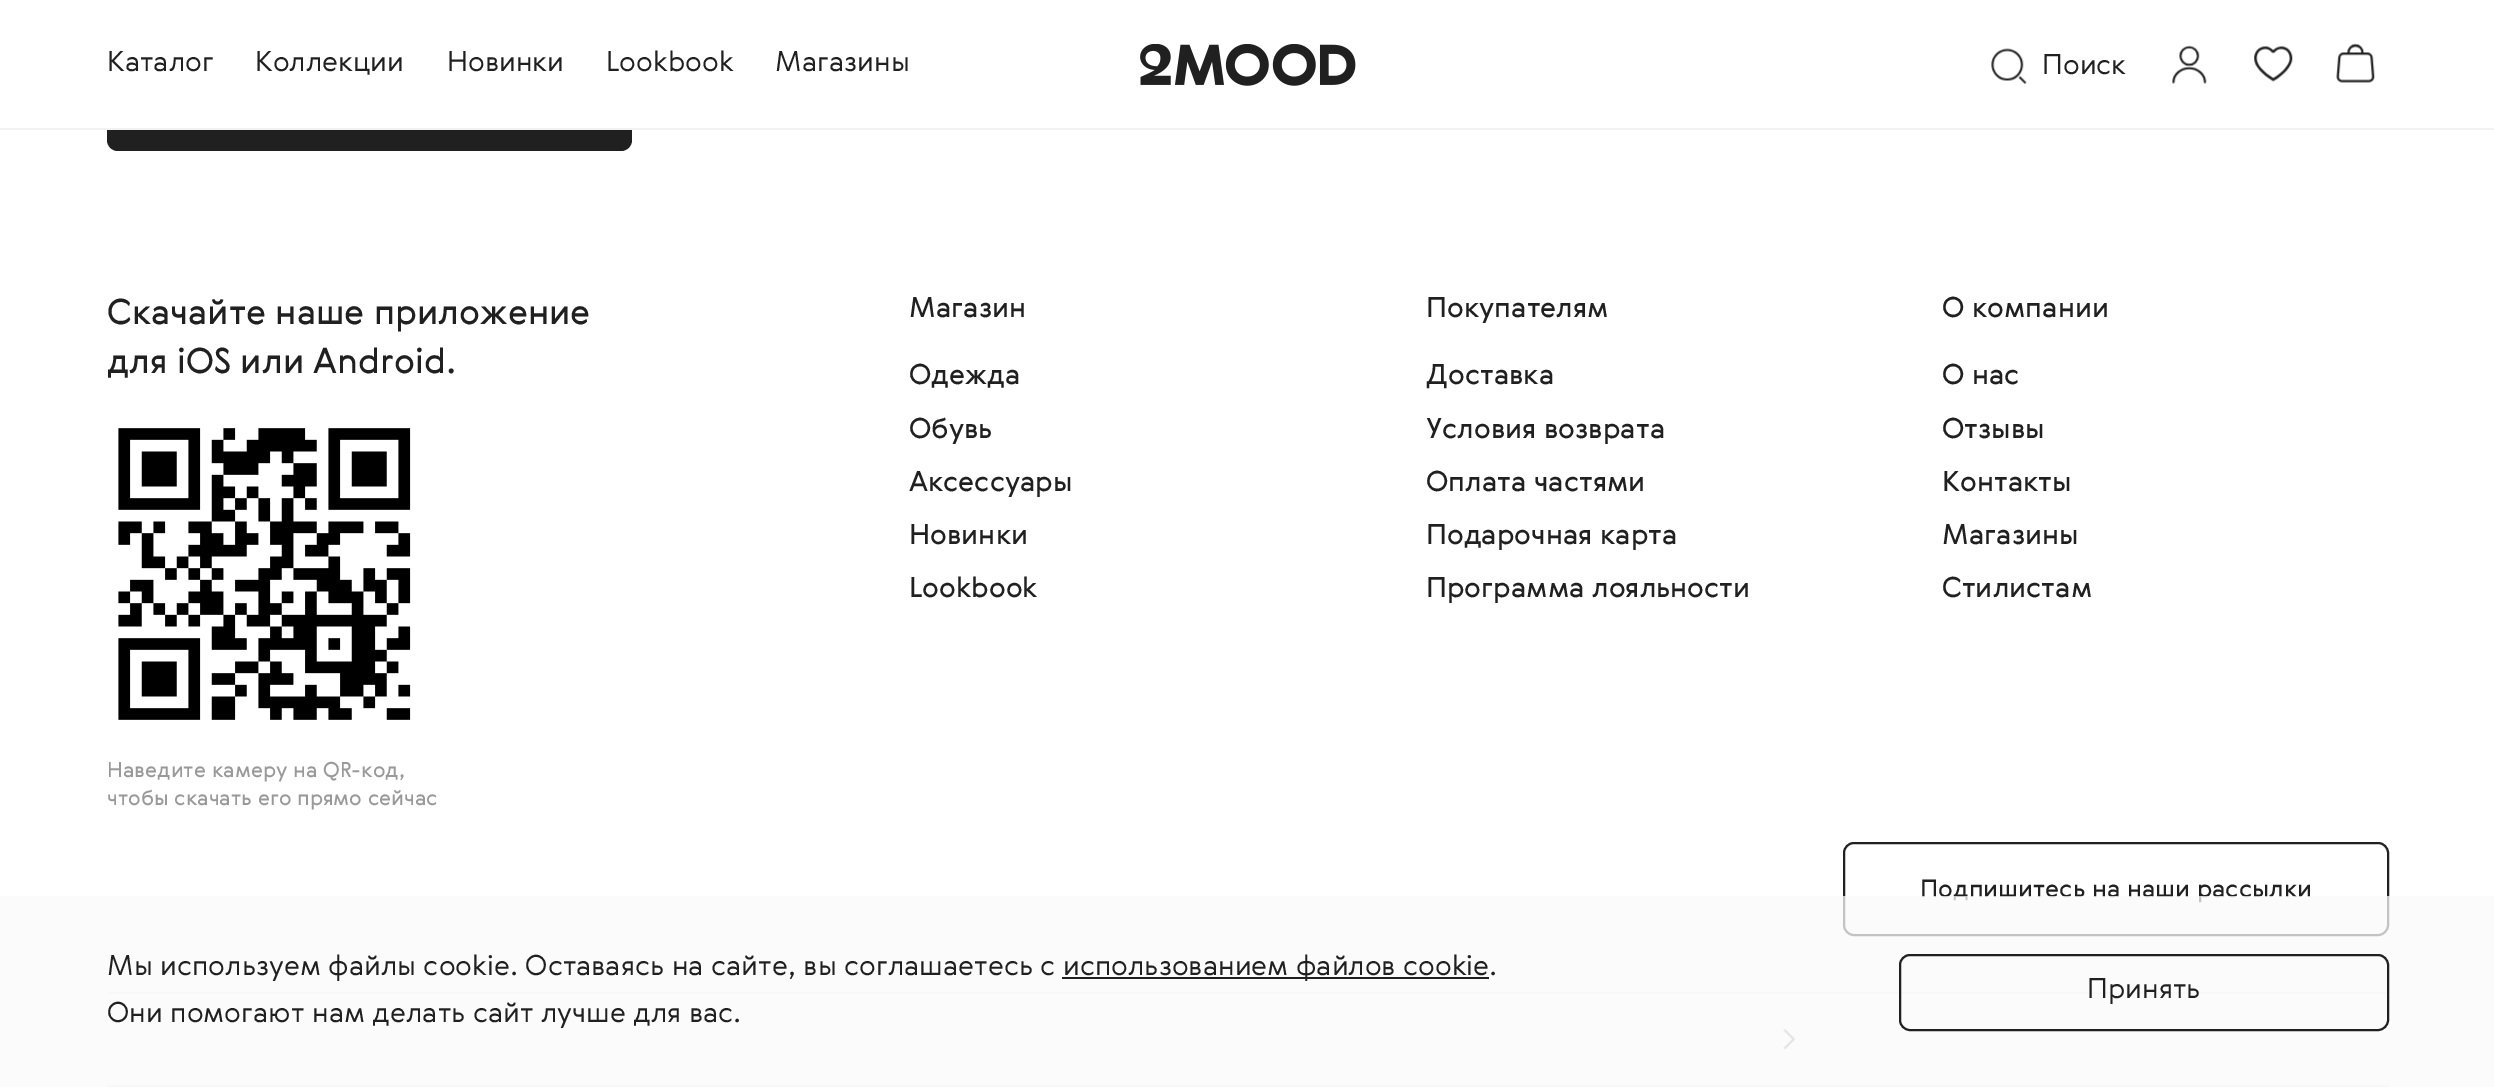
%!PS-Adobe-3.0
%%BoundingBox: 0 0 2494 1087
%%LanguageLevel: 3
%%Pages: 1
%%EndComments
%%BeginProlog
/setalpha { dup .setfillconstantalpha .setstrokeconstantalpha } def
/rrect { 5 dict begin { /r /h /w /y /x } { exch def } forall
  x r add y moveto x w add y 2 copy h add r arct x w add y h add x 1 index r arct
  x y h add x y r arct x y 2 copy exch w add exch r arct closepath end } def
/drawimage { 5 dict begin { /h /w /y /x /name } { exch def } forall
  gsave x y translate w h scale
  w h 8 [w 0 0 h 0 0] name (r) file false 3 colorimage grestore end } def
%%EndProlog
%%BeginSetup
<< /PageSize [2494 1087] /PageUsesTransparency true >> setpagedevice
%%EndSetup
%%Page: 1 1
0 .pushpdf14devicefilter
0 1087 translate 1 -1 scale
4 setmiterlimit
1 setgray
0 0 2494 1087 rectfill
0.125 setgray
107 56 525 95 11 rrect fill
1 setgray
107 56 525 72 rectfill
0.949 setgray
0 128 2494 2 rectfill
(images/1.raw) 1140 44 216 42 drawimage
(images/2.raw) 1991 48 36 37 drawimage
(images/3.raw) 2172 45 35 39 drawimage
(images/4.raw) 2254 46 39 36 drawimage
(images/5.raw) 2336 43 39 40 drawimage
(images/6.raw) 118 428 293 292 drawimage
0.125 setgray
2 setlinewidth
1844 843 544 92 10 rrect stroke
0.949 setgray
107 992 2282 2 rectfill
107 1085 2282 2 rectfill
(images/7.raw) 1783 1029 13 21 drawimage
/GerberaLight-Light [28 0 0 -28 0 0] selectfont
0.125 setgray
107 71 moveto (Каталог) show
255 71 moveto (Коллекции) show
447 71 moveto (Новинки) show
606 71 moveto (Lookbook) show
775 71 moveto (Магазины) show
2042 74 moveto (Поиск) show
/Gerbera-Regular [35 0 0 -35 0 0] selectfont
107 324 moveto (Скачайте наше приложение) show
107 373 moveto (для iOS или Android.) show
/Gerbera-Regular [21 0 0 -21 0 0] selectfont
0.6 setgray
107 777 moveto (Наведите камеру на QR-код,) show
107 805 moveto (чтобы скачать его прямо сейчас) show
/Gerbera-Regular [28 0 0 -28 0 0] selectfont
0.125 setgray
909 317 moveto (Магазин) show
909 384 moveto (Одежда) show
909 438 moveto (Обувь) show
909 491 moveto (Аксессуары) show
909 544 moveto (Новинки) show
909 597 moveto (Lookbook) show
1426 317 moveto (Покупателям) show
1426 384 moveto (Доставка) show
1426 438 moveto (Условия возврата) show
1426 491 moveto (Оплата частями) show
1426 544 moveto (Подарочная карта) show
1426 597 moveto (Программа лояльности) show
1942 317 moveto (О компании) show
1942 384 moveto (О нас) show
1942 438 moveto (Отзывы) show
1942 491 moveto (Контакты) show
1942 544 moveto (Магазины) show
1942 597 moveto (Стилистам) show
/Gerbera-Regular [24.5 0 0 -24.5 0 0] selectfont
1920 897 moveto (Подпишитесь на наши рассылки) show
0.75 setalpha
0.98 setgray
0 896 2494 191 rectfill
/GerberaLight-Light [28 0 0 -28 0 0] selectfont
1 setalpha
0.125 setgray
107 975 moveto (Мы используем файлы cookie. Оставаясь на сайте, вы соглашаетесь с) show
1062 977 427 2 rectfill
1063 975 moveto (использованием файлов cookie.) show
107 1022 moveto (Они помогают нам делать сайт лучше для вас.) show
1900 955 488 75 10 rrect stroke
2087 998 moveto (Принять) show
.poppdf14devicefilter showpage
%%EOF
